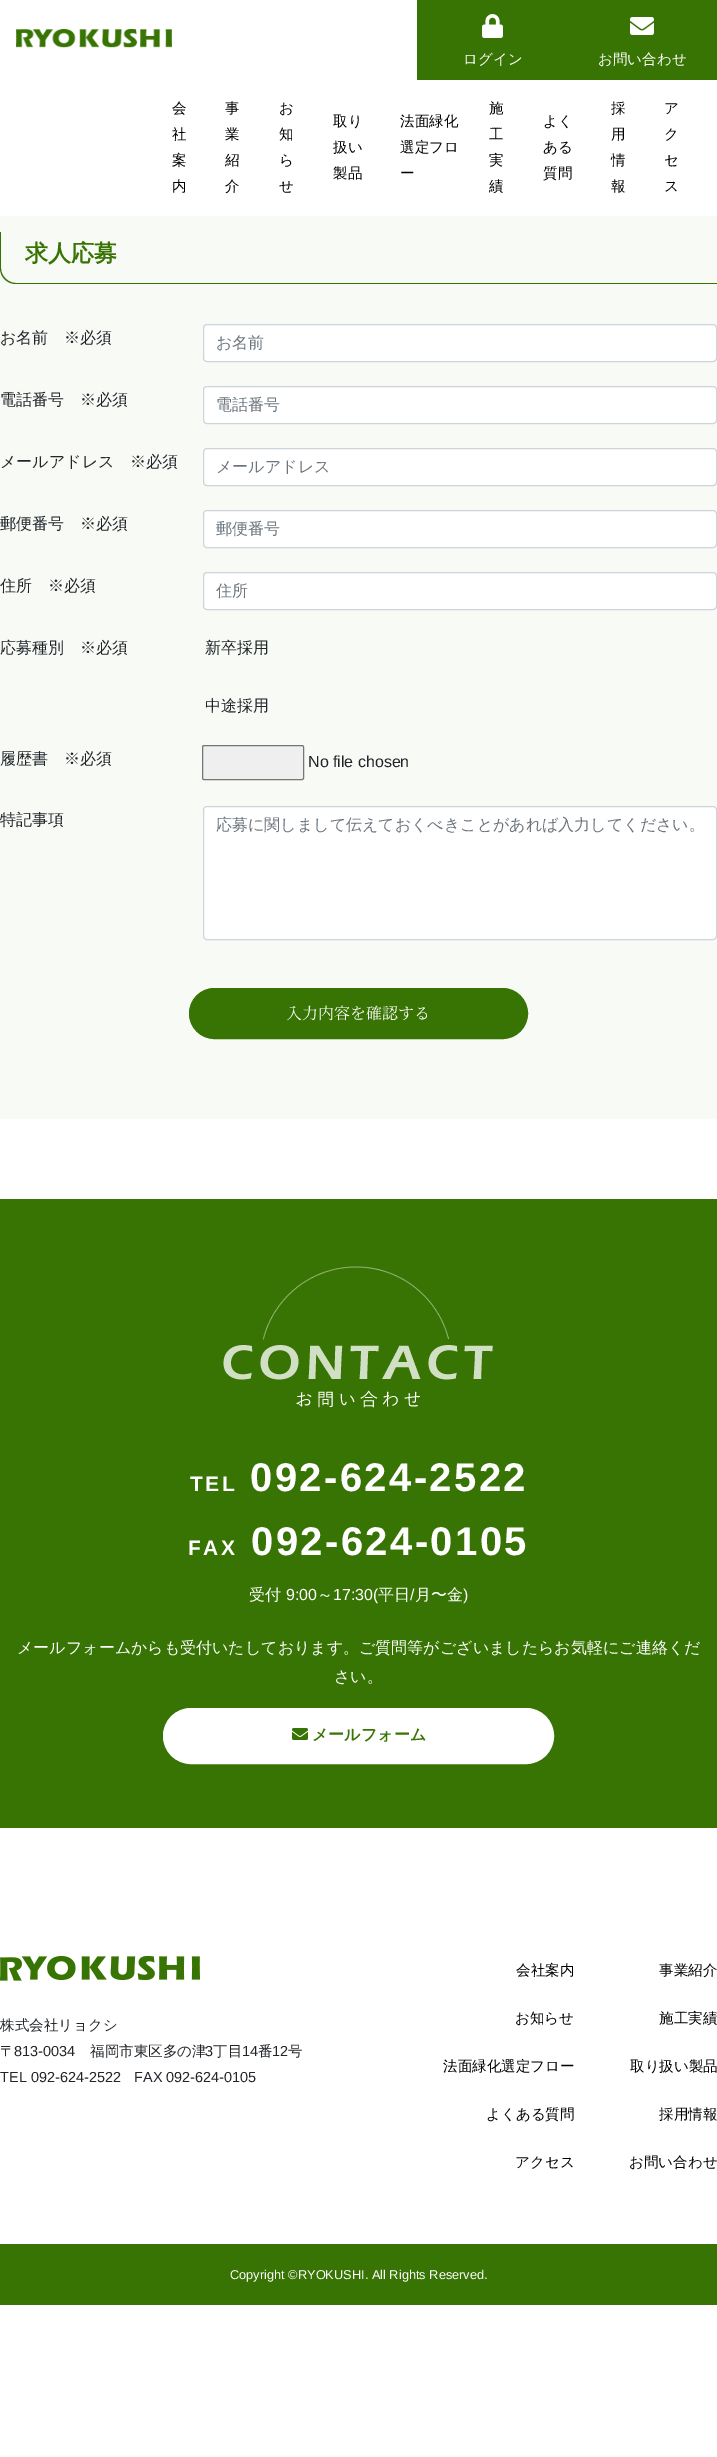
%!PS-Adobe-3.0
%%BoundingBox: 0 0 717 2457
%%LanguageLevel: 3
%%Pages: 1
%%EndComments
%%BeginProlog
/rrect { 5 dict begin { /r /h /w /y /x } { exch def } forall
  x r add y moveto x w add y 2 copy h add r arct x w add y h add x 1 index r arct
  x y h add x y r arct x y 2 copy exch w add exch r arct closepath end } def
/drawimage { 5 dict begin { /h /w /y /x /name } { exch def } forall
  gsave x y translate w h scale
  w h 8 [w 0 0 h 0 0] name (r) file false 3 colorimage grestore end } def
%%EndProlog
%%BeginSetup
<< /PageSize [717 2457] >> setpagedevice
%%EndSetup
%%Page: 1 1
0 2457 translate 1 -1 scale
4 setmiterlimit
1 setgray
0 0 717 2457 rectfill
(images/1.raw) 16 29 156 19 drawimage
0.22 0.455 0.012 setrgbcolor
417 0 300 80 rectfill
(images/2.raw) 482 14 21 24 drawimage
(images/3.raw) 630 17 24 18 drawimage
0.973 0.98 0.965 setrgbcolor
0 216 717 903 rectfill
0.22 0.455 0.012 setrgbcolor
newpath 0 232 moveto 717 232 lineto 717 284 lineto 16 284 lineto 7 284 0 277 0 268 curveto closepath 1 232 moveto 717 232 lineto 717 283 lineto 16 283 lineto 8 283 1 276 1 268 curveto closepath eofill
1 setgray
203.5 324.5 513 37 3.5 rrect gsave fill grestore
0.808 0.831 0.855 setrgbcolor
stroke
1 setgray
203.5 386.5 513 37 3.5 rrect gsave fill grestore
0.808 0.831 0.855 setrgbcolor
stroke
1 setgray
203.5 448.5 513 37 3.5 rrect gsave fill grestore
0.808 0.831 0.855 setrgbcolor
stroke
1 setgray
203.5 510.5 513 37 3.5 rrect gsave fill grestore
0.808 0.831 0.855 setrgbcolor
stroke
1 setgray
203.5 572.5 513 37 3.5 rrect gsave fill grestore
0.808 0.831 0.855 setrgbcolor
stroke
0.937 setgray
202.5 745.5 101 34 1.5 rrect gsave fill grestore
0.463 setgray
stroke
1 setgray
203.5 806.5 513 133 3.5 rrect gsave fill grestore
0.808 0.831 0.855 setrgbcolor
stroke
0.22 0.455 0.012 setrgbcolor
189.5 988.5 338 50 25 rrect gsave fill grestore
stroke
0 1199 717 629 rectfill
(images/4.raw) 223 1266 270 142 drawimage
1 setgray
163.5 1708.5 390 55 27.5 rrect gsave fill grestore
stroke
(images/5.raw) 292 1728 16 12 drawimage
(images/6.raw) 0 1956 200 25 drawimage
0.22 0.455 0.012 setrgbcolor
0 2244 717 61 rectfill
/WenQuanYiZenHei-Medium [14.5 0 0 -14.5 0 0] selectfont
1 setgray
463 64 moveto (ログイン) show
598 64 moveto (お問い合わせ) show
0 setgray
172 113 moveto (会) show
172 139 moveto (社) show
172 165 moveto (案) show
172 191 moveto (内) show
225 113 moveto (事) show
225 139 moveto (業) show
225 165 moveto (紹) show
225 191 moveto (介) show
279 113 moveto (お) show
279 139 moveto (知) show
279 165 moveto (ら) show
279 191 moveto (せ) show
333 126 moveto (取り) show
333 152 moveto (扱い) show
333 178 moveto (製品) show
400 126 moveto (法面緑化) show
400 152 moveto (選定フロ) show
400 178 moveto (ー) show
489 113 moveto (施) show
489 139 moveto (工) show
489 165 moveto (実) show
489 191 moveto (績) show
543 126 moveto (よく) show
543 152 moveto (ある) show
543 178 moveto (質問) show
611 113 moveto (採) show
611 139 moveto (用) show
611 165 moveto (情) show
611 191 moveto (報) show
664 113 moveto (ア) show
664 139 moveto (ク) show
664 165 moveto (セ) show
664 191 moveto (ス) show
/WenQuanYiZenHei-Bold [23 0 0 -23 0 0] selectfont
0.22 0.455 0.012 setrgbcolor
25 261 moveto (求人応募) show
/WenQuanYiZenHei-Medium [16 0 0 -16 0 0] selectfont
0.129 0.145 0.161 setrgbcolor
0 343 moveto (お名前　※必須) show
0.424 0.459 0.49 setrgbcolor
216 348 moveto (お名前) show
0.129 0.145 0.161 setrgbcolor
0 405 moveto (電話番号　※必須) show
0.424 0.459 0.49 setrgbcolor
216 410 moveto (電話番号) show
0.129 0.145 0.161 setrgbcolor
0 467 moveto (メールアドレス　※必須) show
0.424 0.459 0.49 setrgbcolor
216 472 moveto (メールアドレス) show
0.129 0.145 0.161 setrgbcolor
0 529 moveto (郵便番号　※必須) show
0.424 0.459 0.49 setrgbcolor
216 534 moveto (郵便番号) show
0.129 0.145 0.161 setrgbcolor
0 591 moveto (住所　※必須) show
0.424 0.459 0.49 setrgbcolor
216 596 moveto (住所) show
0.129 0.145 0.161 setrgbcolor
0 653 moveto (応募種別　※必須) show
205 653 moveto (新卒採用) show
205 711 moveto (中途採用) show
0 764 moveto (履歴書　※必須) show
/LiberationSans-Regular [16 0 0 -16 0 0] selectfont
308 767 moveto (No file chosen) show
/WenQuanYiZenHei-Medium [16 0 0 -16 0 0] selectfont
0 825 moveto (特記事項) show
0.424 0.459 0.49 setrgbcolor
216 830 moveto (応募に関しまして伝えておくべきことがあれば入力してください。) show
/NotoSerifJP-Regular [16 0 0 -16 0 0] selectfont
1 setgray
286 1019 moveto (入力内容を確認する) show
/LiberationSans-Bold [21 0 0 -21 0 0] selectfont
190 1491 moveto 2.4 0 (TEL) ashow
/LiberationSans-Bold [40 0 0 -40 0 0] selectfont
250 1491 moveto 2.4 0 (092-624-2522) ashow
/LiberationSans-Bold [21 0 0 -21 0 0] selectfont
188 1555 moveto 2.4 0 (FAX) ashow
/LiberationSans-Bold [40 0 0 -40 0 0] selectfont
251 1555 moveto 2.4 0 (092-624-0105) ashow
/WenQuanYiZenHei-Medium [16 0 0 -16 0 0] selectfont
249 1600 moveto (受付) show
/LiberationSans-Regular [16 0 0 -16 0 0] selectfont
286 1600 moveto (9:00) show
/WenQuanYiZenHei-Medium [16 0 0 -16 0 0] selectfont
317 1600 moveto (～) show
/LiberationSans-Regular [16 0 0 -16 0 0] selectfont
333 1600 moveto (17:30\() show
/WenQuanYiZenHei-Medium [16 0 0 -16 0 0] selectfont
378 1600 moveto (平日) show
/LiberationSans-Regular [16 0 0 -16 0 0] selectfont
410 1600 moveto (/) show
/WenQuanYiZenHei-Medium [16 0 0 -16 0 0] selectfont
415 1600 moveto (月〜金) show
/LiberationSans-Regular [16 0 0 -16 0 0] selectfont
463 1600 moveto (\)) show
/WenQuanYiZenHei-Medium [16 0 0 -16 0 0] selectfont
17 1653 moveto (メールフォームからも受付いたしております。ご質問等がございましたらお気軽にご連絡くだ) show
334 1682 moveto (さい。) show
/WenQuanYiZenHei-Bold [16 0 0 -16 0 0] selectfont
0.22 0.455 0.012 setrgbcolor
312 1740 moveto (メールフォーム) show
/WenQuanYiZenHei-Medium [14.5 0 0 -14.5 0 0] selectfont
0.129 0.145 0.161 setrgbcolor
0 2030 moveto (株式会社リョクシ) show
0 2056 moveto (〒) show
/LiberationSans-Regular [14.5 0 0 -14.5 0 0] selectfont
14 2056 moveto (813-0034) show
/WenQuanYiZenHei-Medium [14.5 0 0 -14.5 0 0] selectfont
90 2056 moveto (福岡市東区多の津) show
/LiberationSans-Regular [14.5 0 0 -14.5 0 0] selectfont
205 2056 moveto (3) show
/WenQuanYiZenHei-Medium [14.5 0 0 -14.5 0 0] selectfont
213 2056 moveto (丁目) show
/LiberationSans-Regular [14.5 0 0 -14.5 0 0] selectfont
242 2056 moveto (14) show
/WenQuanYiZenHei-Medium [14.5 0 0 -14.5 0 0] selectfont
258 2056 moveto (番) show
/LiberationSans-Regular [14.5 0 0 -14.5 0 0] selectfont
272 2056 moveto (12) show
/WenQuanYiZenHei-Medium [14.5 0 0 -14.5 0 0] selectfont
288 2056 moveto (号) show
/LiberationSans-Regular [14.5 0 0 -14.5 0 0] selectfont
0 2082 moveto (TEL 092-624-2522) show
134 2082 moveto (FAX 092-624-0105) show
/WenQuanYiZenHei-Medium [14.5 0 0 -14.5 0 0] selectfont
0 setgray
516 1975 moveto (会社案内) show
659 1975 moveto (事業紹介) show
515 2023 moveto (お知らせ) show
659 2023 moveto (施工実績) show
443 2071 moveto (法面緑化選定フロー) show
630 2071 moveto (取り扱い製品) show
486 2119 moveto (よくある質問) show
659 2119 moveto (採用情報) show
515 2167 moveto (アクセス) show
629 2167 moveto (お問い合わせ) show
/LiberationSans-Regular [12.8 0 0 -12.8 0 0] selectfont
1 setgray
230 2279 moveto (Copyright ©RYOKUSHI. All Rights Reserved.) show
showpage
%%EOF
